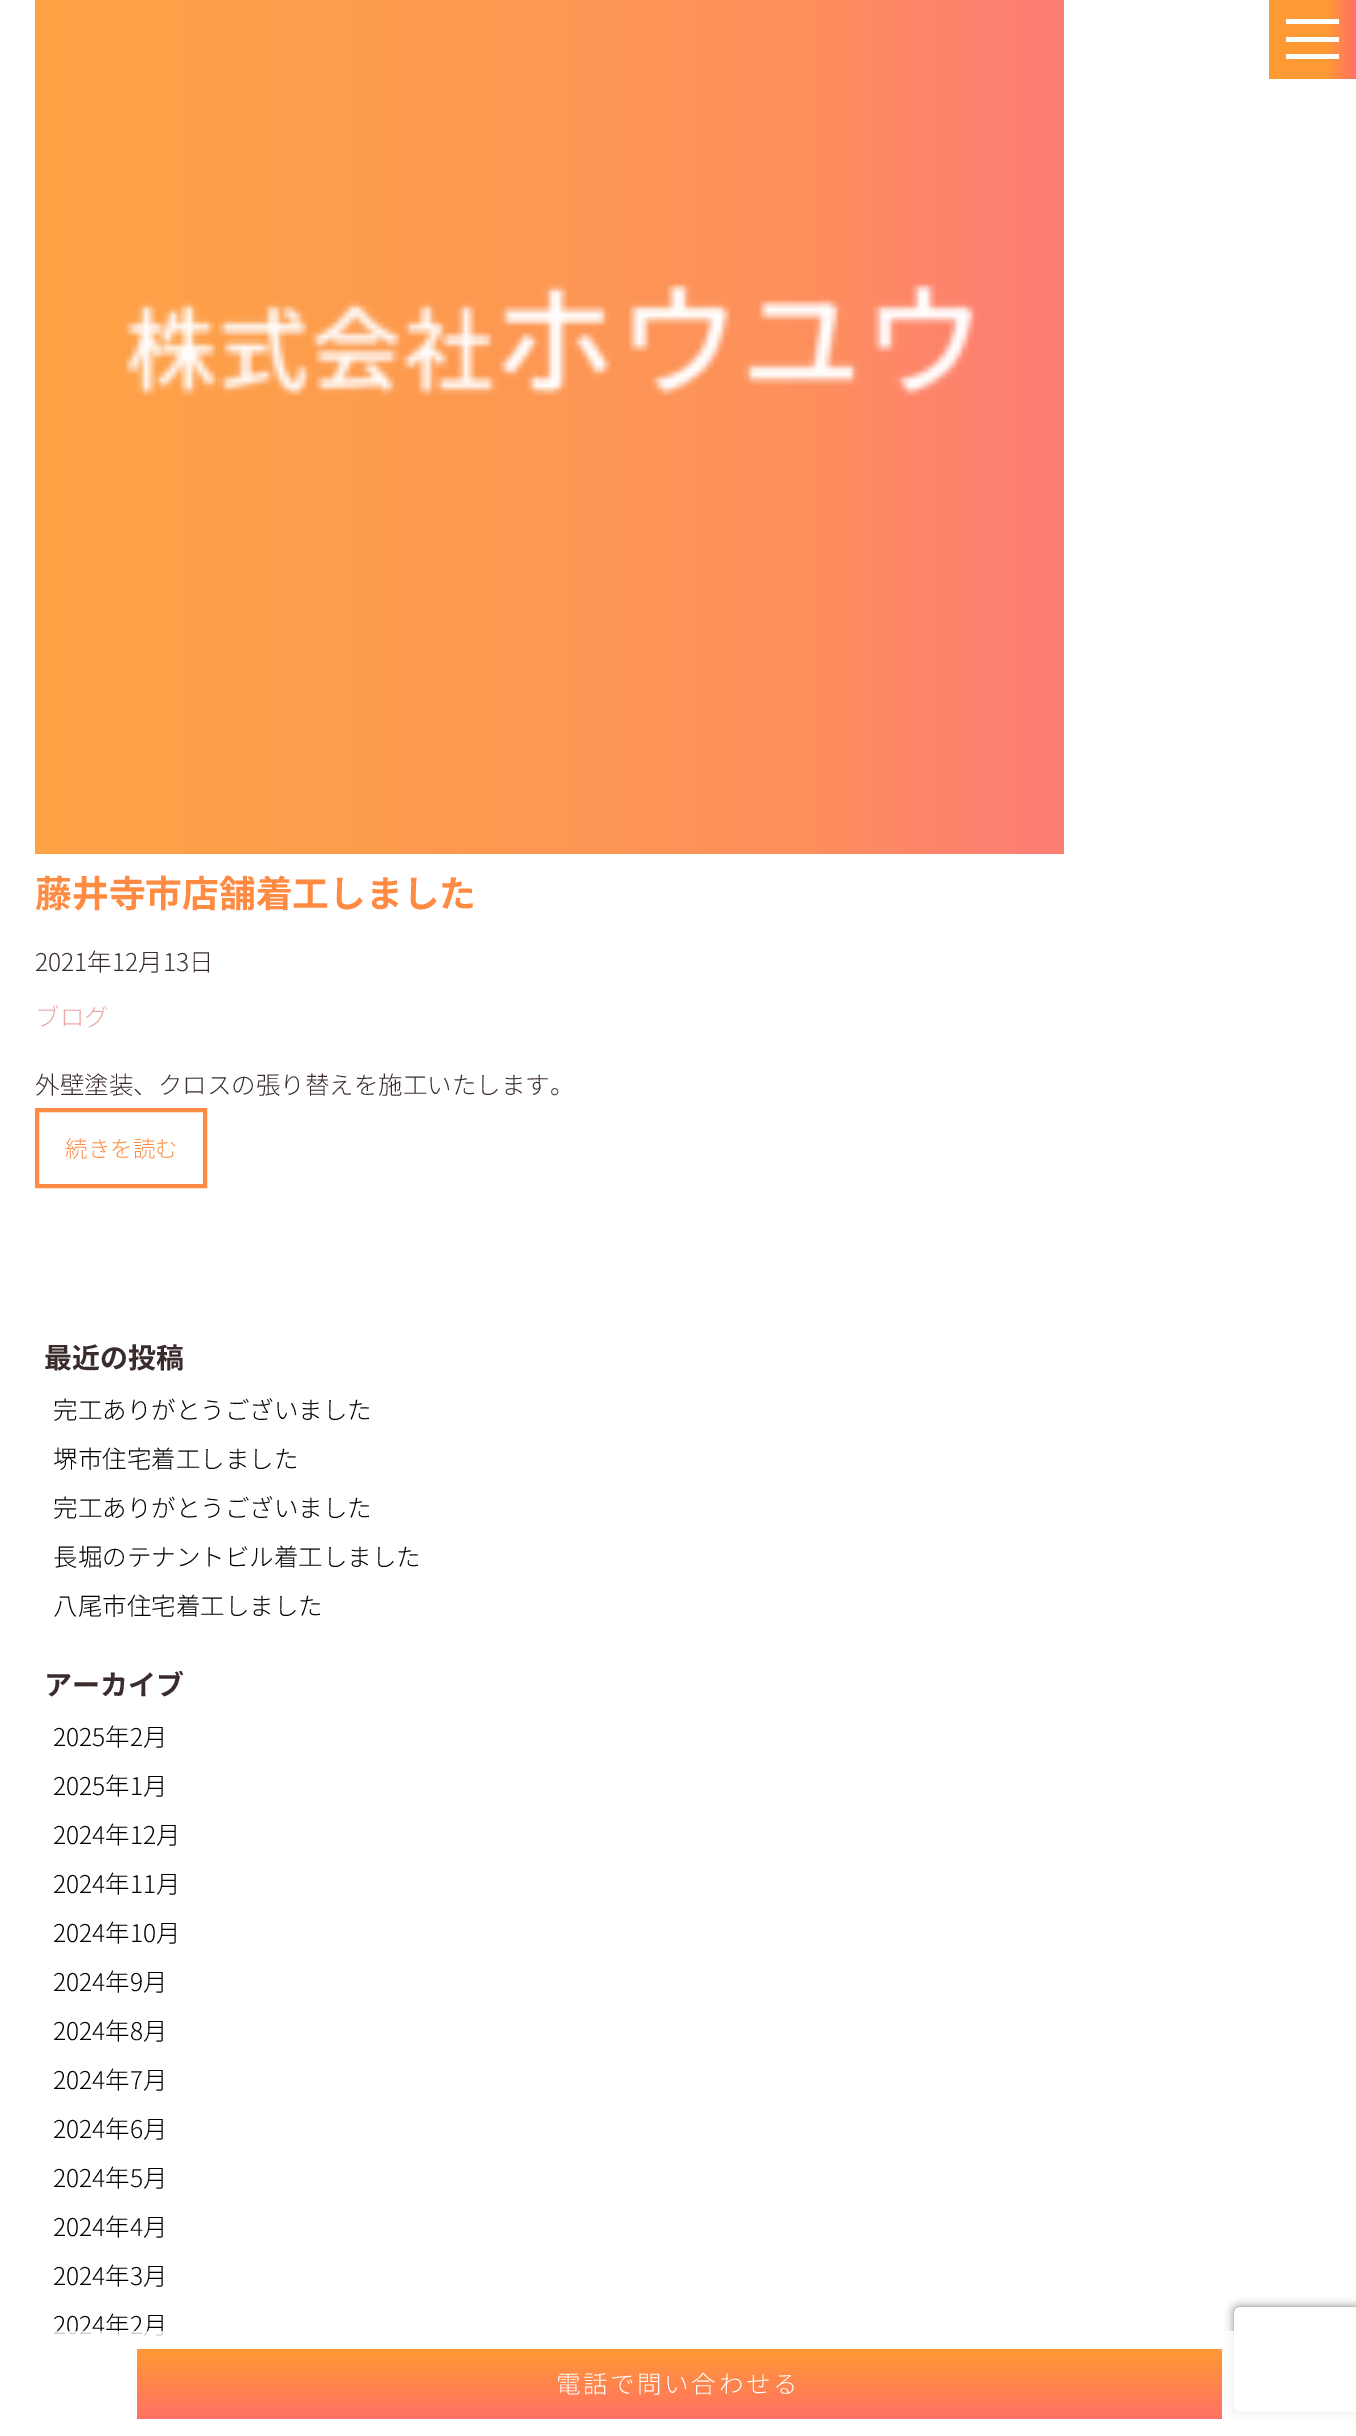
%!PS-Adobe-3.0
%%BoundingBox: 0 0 1356 2436
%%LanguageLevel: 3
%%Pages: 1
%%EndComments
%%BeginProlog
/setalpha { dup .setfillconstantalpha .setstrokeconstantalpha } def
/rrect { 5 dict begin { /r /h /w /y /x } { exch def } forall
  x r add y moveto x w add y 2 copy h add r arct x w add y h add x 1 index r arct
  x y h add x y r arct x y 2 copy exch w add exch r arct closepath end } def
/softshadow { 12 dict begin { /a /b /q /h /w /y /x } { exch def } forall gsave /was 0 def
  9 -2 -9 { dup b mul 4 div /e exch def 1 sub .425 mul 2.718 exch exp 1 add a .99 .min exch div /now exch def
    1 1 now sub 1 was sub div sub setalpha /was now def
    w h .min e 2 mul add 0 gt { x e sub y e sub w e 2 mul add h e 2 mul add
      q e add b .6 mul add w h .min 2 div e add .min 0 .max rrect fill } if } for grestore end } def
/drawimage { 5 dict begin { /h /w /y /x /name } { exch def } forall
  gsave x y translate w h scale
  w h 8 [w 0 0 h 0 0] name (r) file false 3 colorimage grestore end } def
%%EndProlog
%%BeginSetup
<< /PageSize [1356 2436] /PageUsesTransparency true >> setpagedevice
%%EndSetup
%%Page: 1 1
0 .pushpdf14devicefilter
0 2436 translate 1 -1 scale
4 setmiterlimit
1 setgray
0 0 1356 2436 rectfill
gsave newpath 1269 0 moveto 1356 0 lineto 1356 79 lineto 1269 79 lineto closepath clip newpath
<< /ShadingType 2 /ColorSpace /DeviceRGB /Coords [1269 39 1356 39] /Extend [true true] /Function << /FunctionType 3 /Domain [0 1] /Functions [<< /FunctionType 2 /Domain [0 1] /C0 [1 0.6 0.2] /C1 [1 0.6 0.2] /N 1 >> << /FunctionType 2 /Domain [0 1] /C0 [1 0.6 0.2] /C1 [1 0.443 0.4] /N 1 >>] /Bounds [0.67] /Encode [0 1 0 1] >> >> shfill grestore
1286 37 53 5 rectfill
1286 19 53 5 rectfill
1286 54 53 5 rectfill
(images/1.raw) 35 0 1029 854 drawimage
1 0.545 0.259 setrgbcolor
4 setlinewidth
37 1110 168 76 rectstroke
gsave
newpath 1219 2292 moveto 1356 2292 lineto 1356 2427 lineto 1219 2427 lineto closepath 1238 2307 moveto 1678 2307 lineto 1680 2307 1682 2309 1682 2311 curveto 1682 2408 lineto 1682 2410 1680 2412 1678 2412 curveto 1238 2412 lineto 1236 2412 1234 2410 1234 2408 curveto 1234 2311 lineto 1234 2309 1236 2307 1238 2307 curveto closepath eoclip newpath
0.502 setgray
1234 2307 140 105 4 4.5 1 softshadow
grestore
/NotoSansJP-Bold [36.75 0 0 -36.75 0 0] selectfont
35 907 moveto (藤井寺市店舗着工しました) show
/NotoSansJP-Light [24.5 0 0 -24.5 0 0] selectfont
0.227 0.173 0.173 setrgbcolor
35 971 moveto (2021年12月13日) show
0.922 0.655 0.655 setrgbcolor
35 1026 moveto (ブログ) show
0.227 0.173 0.173 setrgbcolor
35 1094 moveto (外壁塗装、クロスの張り替えを施工いたします。) show
/NotoSansJP-Light [22.5 0 0 -22.5 0 0] selectfont
1 0.545 0.259 setrgbcolor
65 1157 moveto (続きを読む) show
/NotoSansJP-Bold [28 0 0 -28 0 0] selectfont
0.227 0.173 0.173 setrgbcolor
44 1368 moveto (最近の投稿) show
/NotoSansJP-Light [24.5 0 0 -24.5 0 0] selectfont
0 setgray
53 1419 moveto (完工ありがとうございました) show
53 1468 moveto (堺市住宅着工しました) show
53 1517 moveto (完工ありがとうございました) show
53 1566 moveto (長堀のテナントビル着工しました) show
53 1615 moveto (八尾市住宅着工しました) show
/NotoSansJP-Bold [28 0 0 -28 0 0] selectfont
0.227 0.173 0.173 setrgbcolor
44 1695 moveto (アーカイブ) show
/NotoSansJP-Light [24.5 0 0 -24.5 0 0] selectfont
0 setgray
53 1746 moveto (2025年2月) show
53 1795 moveto (2025年1月) show
53 1844 moveto (2024年12月) show
53 1893 moveto (2024年11月) show
53 1942 moveto (2024年10月) show
53 1991 moveto (2024年9月) show
53 2040 moveto (2024年8月) show
53 2089 moveto (2024年7月) show
53 2138 moveto (2024年6月) show
53 2187 moveto (2024年5月) show
53 2236 moveto (2024年4月) show
53 2285 moveto (2024年3月) show
53 2334 moveto (2024年2月) show
0.8 setalpha
1 setgray
53 2331 1303 90 rectfill
1 setalpha
gsave newpath 137 2349 moveto 1222 2349 lineto 1222 2419 lineto 137 2419 lineto closepath clip newpath
<< /ShadingType 2 /ColorSpace /DeviceRGB /Coords [679 2349 679 2419] /Extend [true true] /Function << /FunctionType 2 /Domain [0 1] /C0 [1 0.6 0.2] /C1 [1 0.443 0.4] /N 1 >> >> shfill grestore
556 2393 moveto 2.6 0 (電話で問い合わせる) ashow
.poppdf14devicefilter showpage
%%EOF
